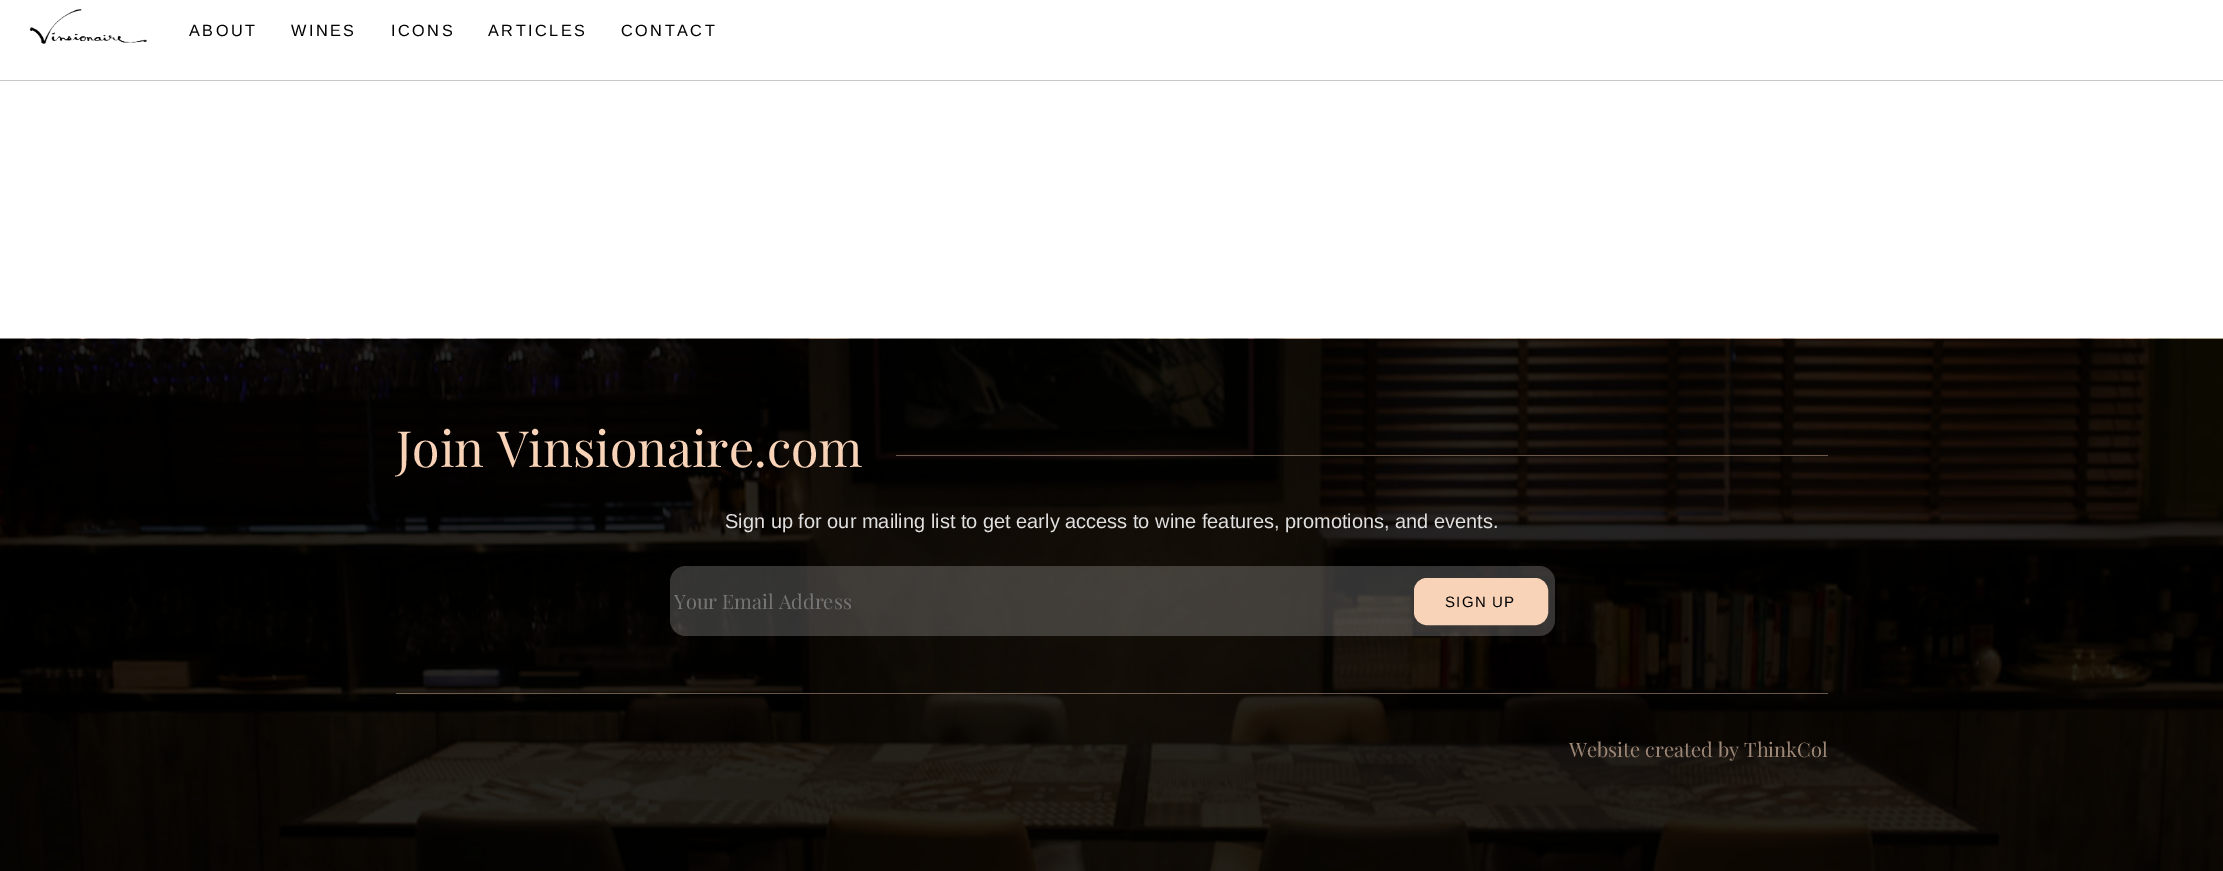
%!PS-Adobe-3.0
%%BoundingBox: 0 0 2223 871
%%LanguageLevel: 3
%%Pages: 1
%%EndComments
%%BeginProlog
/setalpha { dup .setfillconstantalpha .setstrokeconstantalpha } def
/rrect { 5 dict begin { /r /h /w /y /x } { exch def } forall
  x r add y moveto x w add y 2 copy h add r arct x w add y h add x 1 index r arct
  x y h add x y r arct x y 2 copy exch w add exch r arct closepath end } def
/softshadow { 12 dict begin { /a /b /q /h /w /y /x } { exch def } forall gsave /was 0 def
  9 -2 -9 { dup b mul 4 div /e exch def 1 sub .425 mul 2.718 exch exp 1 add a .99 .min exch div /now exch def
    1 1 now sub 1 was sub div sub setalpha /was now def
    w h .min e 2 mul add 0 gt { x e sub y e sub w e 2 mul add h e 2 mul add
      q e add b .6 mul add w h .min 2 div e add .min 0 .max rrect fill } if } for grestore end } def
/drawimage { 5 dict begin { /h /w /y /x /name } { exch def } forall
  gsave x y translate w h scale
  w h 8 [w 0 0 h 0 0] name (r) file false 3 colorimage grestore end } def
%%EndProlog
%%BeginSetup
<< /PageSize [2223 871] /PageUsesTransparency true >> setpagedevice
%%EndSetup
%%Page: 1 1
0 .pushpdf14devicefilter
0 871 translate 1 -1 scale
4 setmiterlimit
1 setgray
0 0 2223 871 rectfill
gsave
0 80 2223 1 rectclip
0 setgray
0 0 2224 80 0 0.5 0.8 softshadow
grestore
(images/1.raw) 29 9 118 35 drawimage
(images/2.raw) 0 338 2223 533 drawimage
0.4 setalpha
0.973 0.827 0.718 setrgbcolor
896 455 932 1 rectfill
0.2 setalpha
1 setgray
670 566 885 70 16 rrect fill
1 setalpha
0.973 0.827 0.718 setrgbcolor
1414.5 578.5 133 46 12.5 rrect gsave fill grestore
stroke
0.4 setalpha
396 693 1432 1 rectfill
/LiberationSans-Regular [16.25 0 0 -16.25 0 0] selectfont
1 setalpha
0 setgray
189 36 moveto 2.5 0 (ABOUT) ashow
291 36 moveto 2.5 0 (WINES) ashow
391 36 moveto 2.5 0 (ICONS) ashow
488 36 moveto 2.5 0 (ARTICLES) ashow
621 36 moveto 2.5 0 (CONTACT) ashow
/PlayfairDisplay-Regular [50 0 0 -50 0 0] selectfont
0.973 0.827 0.718 setrgbcolor
396 467 moveto (Join Vinsionaire.com) show
/LiberationSans-Regular [20 0 0 -20 0 0] selectfont
0.878 setgray
725 528 moveto (Sign up for our mailing list to get early access to wine features, promotions, and events.) show
/PlayfairDisplay-Regular [20 0 0 -20 0 0] selectfont
0.459 setgray
674 609 moveto (Your Email Address) show
/LiberationSans-Regular [15 0 0 -15 0 0] selectfont
0 setgray
1445 607 moveto 1.25 0 (SIGN UP) ashow
/PlayfairDisplay-Regular [20 0 0 -20 0 0] selectfont
0.612 0.525 0.459 setrgbcolor
1569 757 moveto (Website created by ThinkCol) show
.poppdf14devicefilter showpage
%%EOF
